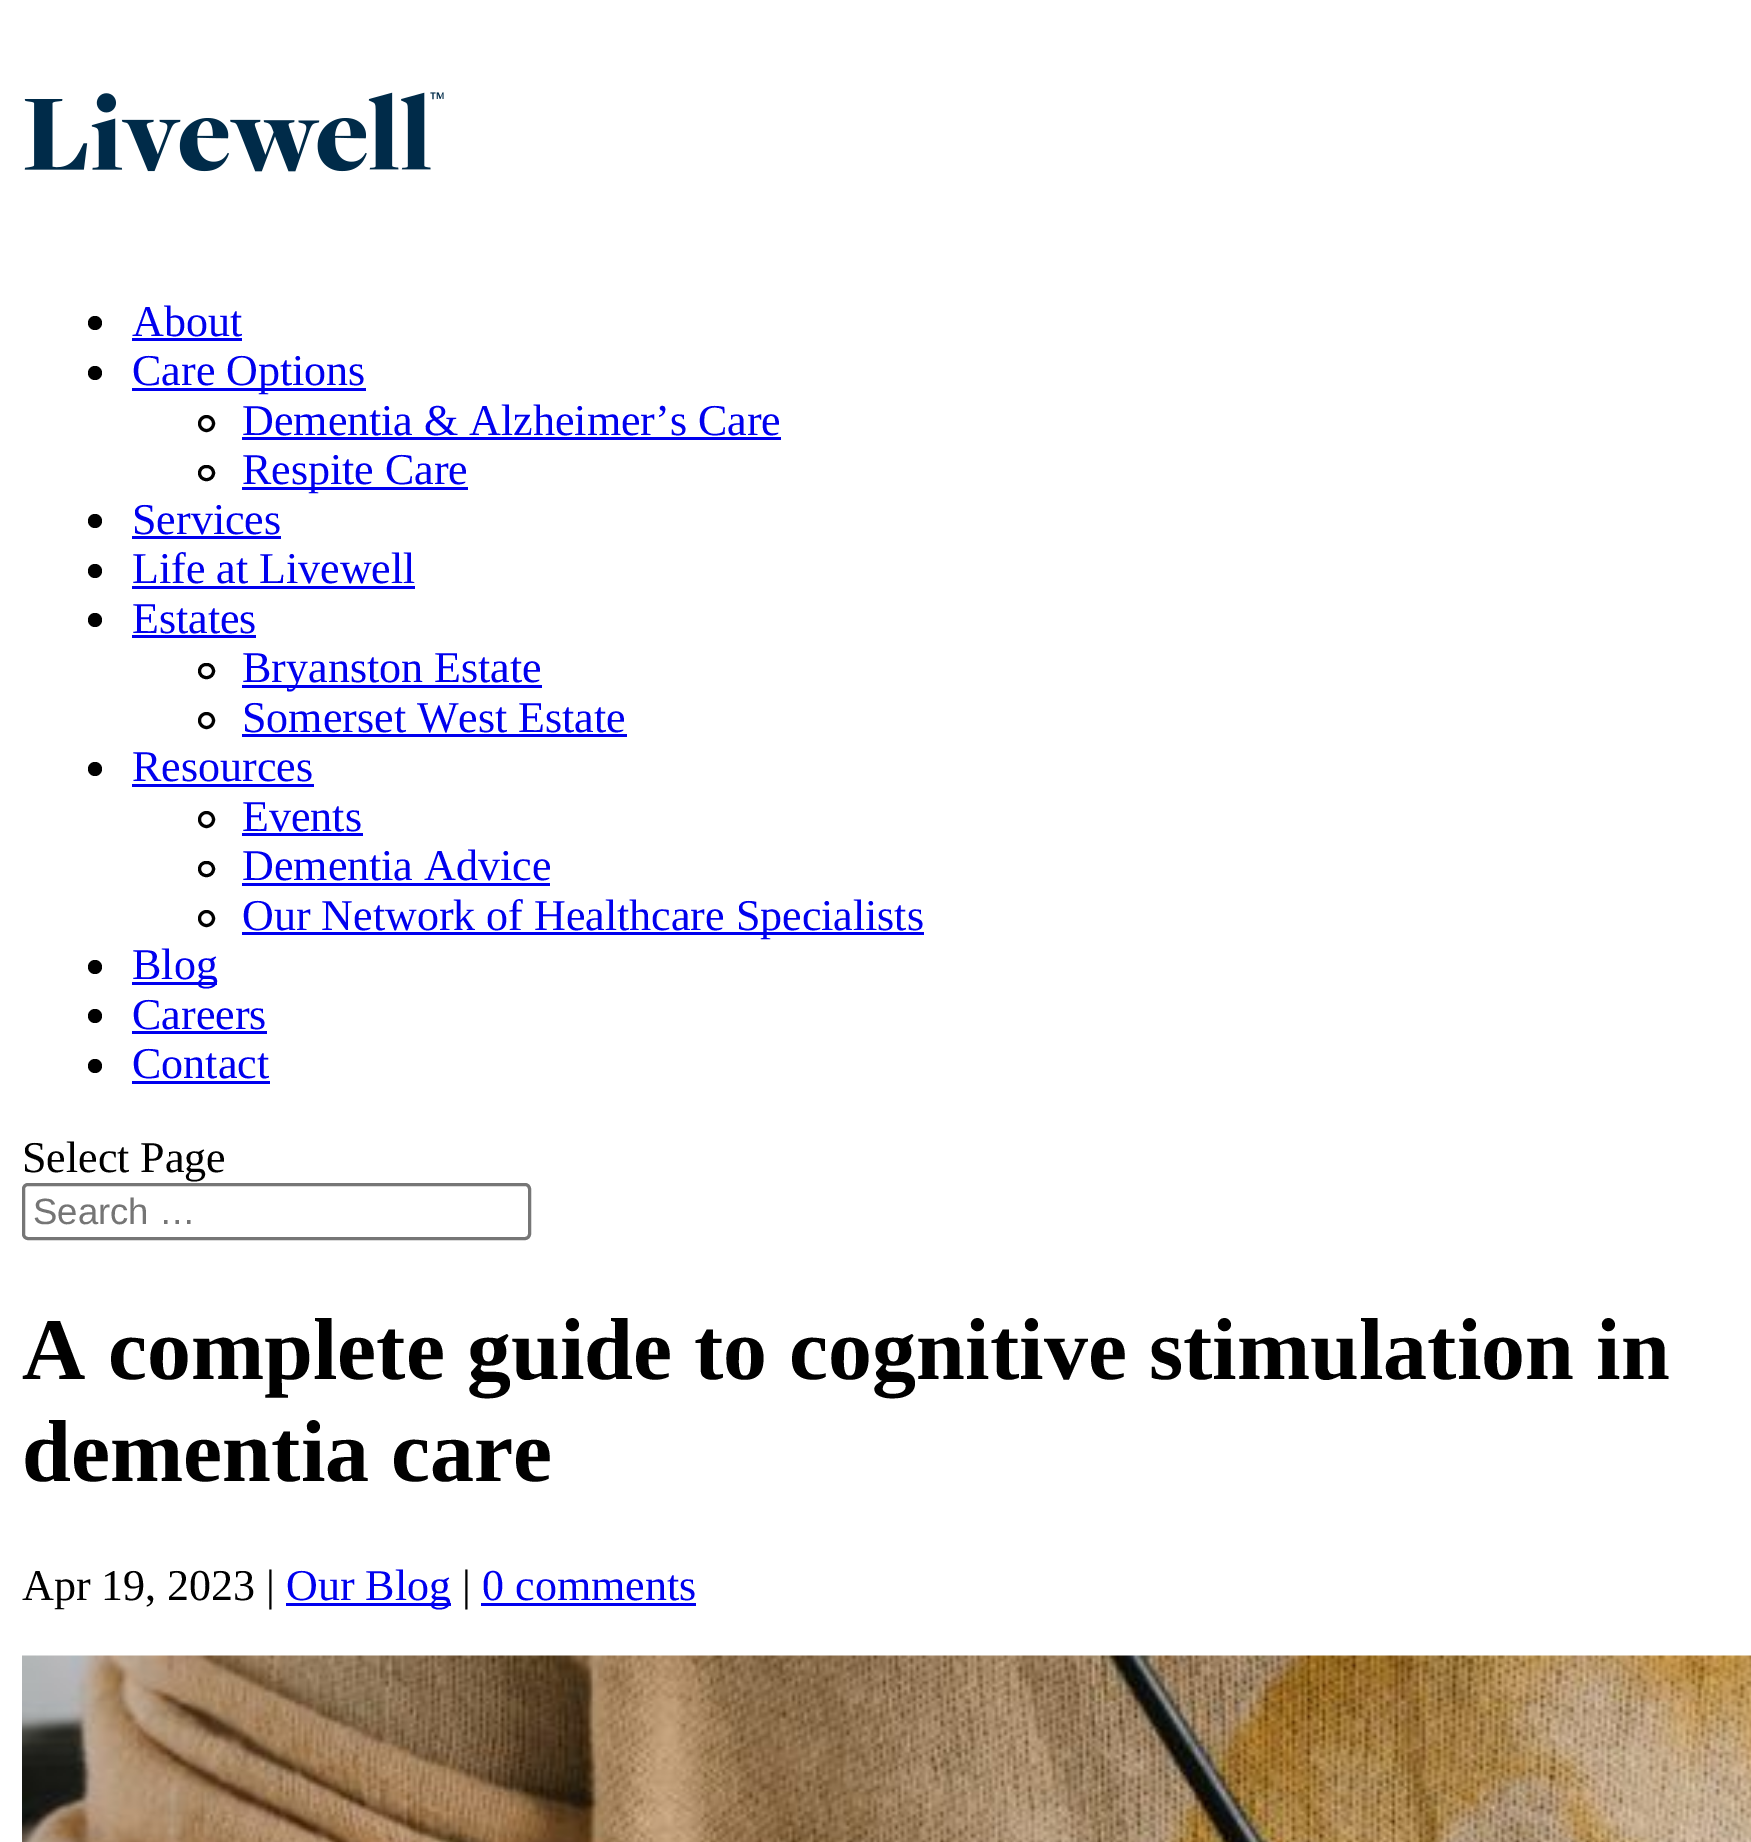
%!PS-Adobe-3.0
%%BoundingBox: 0 0 1751 1842
%%LanguageLevel: 3
%%Pages: 1
%%EndComments
%%BeginProlog
/rrect { 5 dict begin { /r /h /w /y /x } { exch def } forall
  x r add y moveto x w add y 2 copy h add r arct x w add y h add x 1 index r arct
  x y h add x y r arct x y 2 copy exch w add exch r arct closepath end } def
/drawimage { 5 dict begin { /h /w /y /x /name } { exch def } forall
  gsave x y translate w h scale
  w h 8 [w 0 0 h 0 0] name (r) file false 3 colorimage grestore end } def
%%EndProlog
%%BeginSetup
<< /PageSize [1751 1842] >> setpagedevice
%%EndSetup
%%Page: 1 1
0 1842 translate 1 -1 scale
4 setmiterlimit
1 setgray
0 0 1751 1842 rectfill
(images/1.raw) 24 92 420 80 drawimage
0 setgray
newpath 95 323 7 0 360 arc closepath fill
0 0 0.933 setrgbcolor
132 338 110 3 rectfill
0 setgray
newpath 95 373 7 0 360 arc closepath fill
0 0 0.933 setrgbcolor
132 388 234 3 rectfill
0 setgray
3 setlinewidth
newpath 206.5 423.5 7 0 360 arc closepath stroke
0 0 0.933 setrgbcolor
242 437 539 3 rectfill
0 setgray
199.5 466.5 14 13 6.5 rrect stroke
0 0 0.933 setrgbcolor
242 487 226 3 rectfill
0 setgray
newpath 95 521 7 0 360 arc closepath fill
0 0 0.933 setrgbcolor
132 536 149 3 rectfill
0 setgray
newpath 95 571 7 0 360 arc closepath fill
0 0 0.933 setrgbcolor
132 586 283 3 rectfill
0 setgray
newpath 95 620 7 0 360 arc closepath fill
0 0 0.933 setrgbcolor
132 635 124 3 rectfill
0 setgray
199.5 664.5 14 13 6.5 rrect stroke
0 0 0.933 setrgbcolor
242 685 300 3 rectfill
0 setgray
newpath 206.5 720.5 7 0 360 arc closepath stroke
0 0 0.933 setrgbcolor
242 734 385 3 rectfill
0 setgray
newpath 95 769 7 0 360 arc closepath fill
0 0 0.933 setrgbcolor
132 784 182 3 rectfill
0 setgray
newpath 206.5 819.5 7 0 360 arc closepath stroke
0 0 0.933 setrgbcolor
242 833 121 3 rectfill
0 setgray
199.5 862.5 14 13 6.5 rrect stroke
0 0 0.933 setrgbcolor
242 883 308 3 rectfill
0 setgray
newpath 206.5 918.5 7 0 360 arc closepath stroke
0 0 0.933 setrgbcolor
242 932 682 3 rectfill
0 setgray
newpath 95 967 7 0 360 arc closepath fill
0 0 0.933 setrgbcolor
132 982 85 3 rectfill
0 setgray
newpath 95 1016 7 0 360 arc closepath fill
0 0 0.933 setrgbcolor
132 1031 135 3 rectfill
0 setgray
newpath 95 1066 7 0 360 arc closepath fill
0 0 0.933 setrgbcolor
132 1081 138 3 rectfill
0.463 setgray
23.5 1184.5 506 54 4.5 rrect stroke
0 0 0.933 setrgbcolor
286 1603 165 3 rectfill
481 1603 215 3 rectfill
(images/2.raw) 22 1655 1729 187 drawimage
/LiberationSerif-Regular [44 0 0 -44 0 0] selectfont
132 336 moveto (About) show
132 385 moveto (Care Options) show
242 435 moveto (Dementia & Alzheimer’s Care) show
242 484 moveto (Respite Care) show
132 534 moveto (Services) show
132 583 moveto (Life at Livewell) show
132 633 moveto (Estates) show
242 682 moveto (Bryanston Estate) show
242 732 moveto (Somerset West Estate) show
132 781 moveto (Resources) show
242 831 moveto (Events) show
242 880 moveto (Dementia Advice) show
242 930 moveto (Our Network of Healthcare Specialists) show
132 979 moveto (Blog) show
132 1029 moveto (Careers) show
132 1078 moveto (Contact) show
0 setgray
22 1172 moveto (Select Page) show
/LiberationSans-Regular [36.5 0 0 -36.5 0 0] selectfont
0.459 setgray
33 1224 moveto (Search …) show
/LiberationSerif-Bold [88 0 0 -88 0 0] selectfont
0 setgray
22 1379 moveto (A complete guide to cognitive stimulation in) show
22 1481 moveto (dementia care) show
/LiberationSerif-Regular [44 0 0 -44 0 0] selectfont
22 1600 moveto (Apr 19, 2023 |) show
0 0 0.933 setrgbcolor
286 1600 moveto (Our Blog) show
0 setgray
462 1600 moveto (|) show
0 0 0.933 setrgbcolor
482 1600 moveto (0 comments) show
showpage
%%EOF
